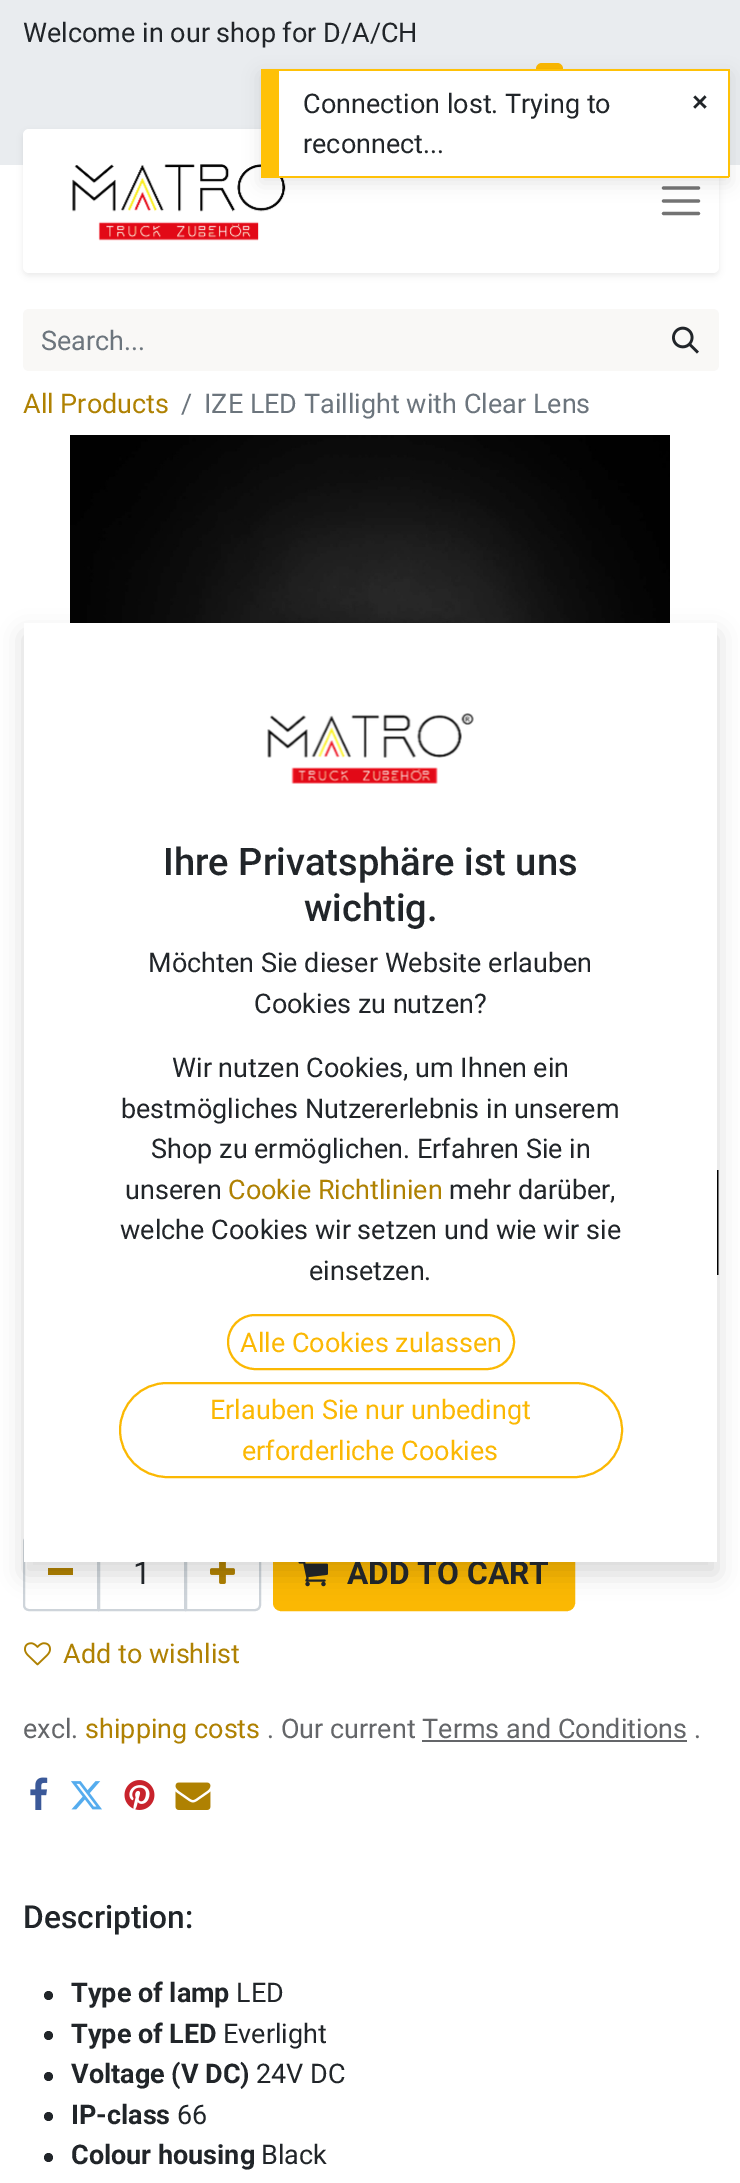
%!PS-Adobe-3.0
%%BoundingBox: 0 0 740 2183
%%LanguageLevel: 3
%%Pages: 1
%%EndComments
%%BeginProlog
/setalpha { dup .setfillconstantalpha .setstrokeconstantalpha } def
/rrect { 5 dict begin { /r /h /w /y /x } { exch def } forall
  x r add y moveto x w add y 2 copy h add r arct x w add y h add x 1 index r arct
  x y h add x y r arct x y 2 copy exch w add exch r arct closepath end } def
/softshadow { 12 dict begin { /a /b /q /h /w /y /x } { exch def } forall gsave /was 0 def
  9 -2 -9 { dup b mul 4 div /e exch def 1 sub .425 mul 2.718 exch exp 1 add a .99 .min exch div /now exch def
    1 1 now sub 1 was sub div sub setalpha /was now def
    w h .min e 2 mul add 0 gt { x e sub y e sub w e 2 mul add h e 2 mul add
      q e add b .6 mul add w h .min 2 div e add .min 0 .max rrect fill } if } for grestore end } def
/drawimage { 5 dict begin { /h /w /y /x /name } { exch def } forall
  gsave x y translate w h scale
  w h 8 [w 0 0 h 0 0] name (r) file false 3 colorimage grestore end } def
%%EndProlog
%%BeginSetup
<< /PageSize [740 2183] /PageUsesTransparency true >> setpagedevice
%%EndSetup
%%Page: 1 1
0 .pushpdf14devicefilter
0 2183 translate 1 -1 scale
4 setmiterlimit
1 setgray
0 0 740 2183 rectfill
0.914 0.925 0.937 setrgbcolor
0 0 740 165 rectfill
0.984 0.722 0.012 setrgbcolor
536 63 27 30 6 rrect fill
0 setgray
23 132 696 144 6 3 0.07 softshadow
1 setgray
23 129 696 144 6 rrect fill
(images/1.raw) 72 164 214 77 drawimage
0.451 setgray
3.2 setlinewidth
1 setlinecap
newpath 663.5 188 moveto 698.5 188 lineto 663.5 201 moveto 698.5 201 lineto 663.5 213.5 moveto 698.5 213.5 lineto stroke
0.976 0.973 0.965 setrgbcolor
newpath 29 309 moveto 654 309 lineto 654 371 lineto 29 371 lineto 25.5 371 23 368.5 23 365 curveto 23 315 lineto 23 311.5 25.5 309 29 309 curveto closepath fill
newpath 653 309 moveto 713 309 lineto 716.5 309 719 311.5 719 315 curveto 719 365 lineto 719 368.5 716.5 371 713 371 curveto 653 371 lineto closepath fill
(images/2.raw) 672 326 27 28 drawimage
(images/3.raw) 70 435 600 188 drawimage
(images/4.raw) 717 1170 2 105 drawimage
0.808 0.831 0.855 setrgbcolor
2 setlinewidth
0 setlinecap
99 1537 86 73 rectstroke
newpath 29 1537 moveto 98 1537 lineto 98 1610 lineto 29 1610 lineto 26 1610 24 1608 24 1605 curveto 24 1542 lineto 24 1539 26 1537 29 1537 curveto closepath stroke
0.686 0.506 0.008 setrgbcolor
48 1568 25 7 rectfill
0.808 0.831 0.855 setrgbcolor
newpath 186 1537 moveto 255 1537 lineto 258 1537 260 1539 260 1542 curveto 260 1605 lineto 260 1608 258 1610 255 1610 curveto 186 1610 lineto closepath stroke
(images/5.raw) 210 1562 25 22 drawimage
0.984 0.722 0.012 setrgbcolor
274 1537 300 73 7 rrect gsave fill grestore
stroke
(images/6.raw) 298 1562 30 25 drawimage
(images/7.raw) 24 1642 27 24 drawimage
0.392 0.4 0.412 setrgbcolor
422 1740 265 2 rectfill
(images/8.raw) 30 1777 18 33 drawimage
(images/9.raw) 71 1781 31 29 drawimage
(images/10.raw) 124 1780 31 30 drawimage
(images/11.raw) 175 1782 36 28 drawimage
0.129 0.145 0.161 setrgbcolor
newpath 48.5 1995.5 4.5 0 360 arc closepath fill
newpath 48.5 2035.5 4.5 0 360 arc closepath fill
newpath 48.5 2076.5 4.5 0 360 arc closepath fill
newpath 48.5 2116.5 4.5 0 360 arc closepath fill
newpath 48.5 2157.5 4.5 0 360 arc closepath fill
0 setgray
24 635 693 939 0 12 0.15 softshadow
261 75 468 108 0 9 0.1 softshadow
1 setgray
279 71 449 105 rectfill
1 0.757 0.027 setrgbcolor
279 69 450 2 rectfill
728 69 2 108 rectfill
261 176 468 2 rectfill
261 69 18 107 rectfill
/Roboto-Regular [27 0 0 -27 0 0] selectfont
0.129 0.145 0.161 setrgbcolor
23 42 moveto (Welcome in our shop for D/A/CH) show
0.424 0.459 0.49 setrgbcolor
41 350 moveto (Search...) show
0.686 0.506 0.008 setrgbcolor
23 413 moveto (All Products) show
0.424 0.459 0.49 setrgbcolor
181 413 moveto (/) show
204 413 moveto (IZE LED Taillight with Clear Lens) show
/Roboto-Regular [31.75 0 0 -31.75 0 0] selectfont
0.129 0.145 0.161 setrgbcolor
133 1584 moveto (1) show
/Roboto-Bold [31.75 0 0 -31.75 0 0] selectfont
347 1584 moveto (ADD TO CART) show
/Roboto-Regular [27 0 0 -27 0 0] selectfont
0.686 0.506 0.008 setrgbcolor
63 1663 moveto (Add to wishlist) show
0.392 0.4 0.412 setrgbcolor
23 1738 moveto (excl.) show
0.686 0.506 0.008 setrgbcolor
85 1738 moveto (shipping costs) show
0.392 0.4 0.412 setrgbcolor
267 1738 moveto (. Our current Terms and Conditions .) show
/Roboto-Medium [31.75 0 0 -31.75 0 0] selectfont
0.129 0.145 0.161 setrgbcolor
23 1928 moveto (Description:) show
/Roboto-Bold [27 0 0 -27 0 0] selectfont
71 2002 moveto (Type of lamp) show
/Roboto-Regular [27 0 0 -27 0 0] selectfont
236 2002 moveto (LED) show
/Roboto-Bold [27 0 0 -27 0 0] selectfont
71 2043 moveto (Type of LED) show
/Roboto-Regular [27 0 0 -27 0 0] selectfont
223 2043 moveto (Everlight) show
/Roboto-Bold [27 0 0 -27 0 0] selectfont
71 2083 moveto (Voltage \(V DC\)) show
/Roboto-Regular [27 0 0 -27 0 0] selectfont
256 2083 moveto (24V DC) show
/Roboto-Bold [27 0 0 -27 0 0] selectfont
71 2124 moveto (IP-class) show
/Roboto-Regular [27 0 0 -27 0 0] selectfont
177 2124 moveto (66) show
/Roboto-Bold [27 0 0 -27 0 0] selectfont
71 2164 moveto (Colour housing) show
/Roboto-Regular [27 0 0 -27 0 0] selectfont
261 2164 moveto (Black) show
1 setgray
24 623 693 939 rectfill
(images/12.raw) 267 713 207 71 drawimage
/Roboto-Medium [38.1 0 0 -38.1 0 0] selectfont
0.129 0.145 0.161 setrgbcolor
163 875 moveto (Ihre Privatsphäre ist uns) show
304 921 moveto (wichtig.) show
/Roboto-Regular [27 0 0 -27 0 0] selectfont
148 972 moveto (Möchten Sie dieser Website erlauben) show
254 1013 moveto (Cookies zu nutzen?) show
172 1077 moveto (Wir nutzen Cookies, um Ihnen ein) show
121 1118 moveto (bestmögliches Nutzererlebnis in unserem) show
151 1158 moveto (Shop zu ermöglichen. Erfahren Sie in) show
125 1199 moveto (unseren) show
0.686 0.506 0.008 setrgbcolor
228 1199 moveto (Cookie Richtlinien) show
0.129 0.145 0.161 setrgbcolor
449 1199 moveto (mehr darüber,) show
120 1239 moveto (welche Cookies wir setzen und wie wir sie) show
309 1280 moveto (einsetzen.) show
0.984 0.722 0.012 setrgbcolor
228 1315 286 54 27 rrect stroke
240 1352 moveto (Alle Cookies zulassen) show
120 1383 502 94 47 rrect stroke
210 1419 moveto (Erlauben Sie nur unbedingt) show
242 1460 moveto (erforderliche Cookies) show
0.129 0.145 0.161 setrgbcolor
303 113 moveto (Connection lost. Trying to) show
303 153 moveto (reconnect...) show
/LiberationSans-Bold [27 0 0 -27 0 0] selectfont
692 111 moveto (×) show
.poppdf14devicefilter showpage
%%EOF
